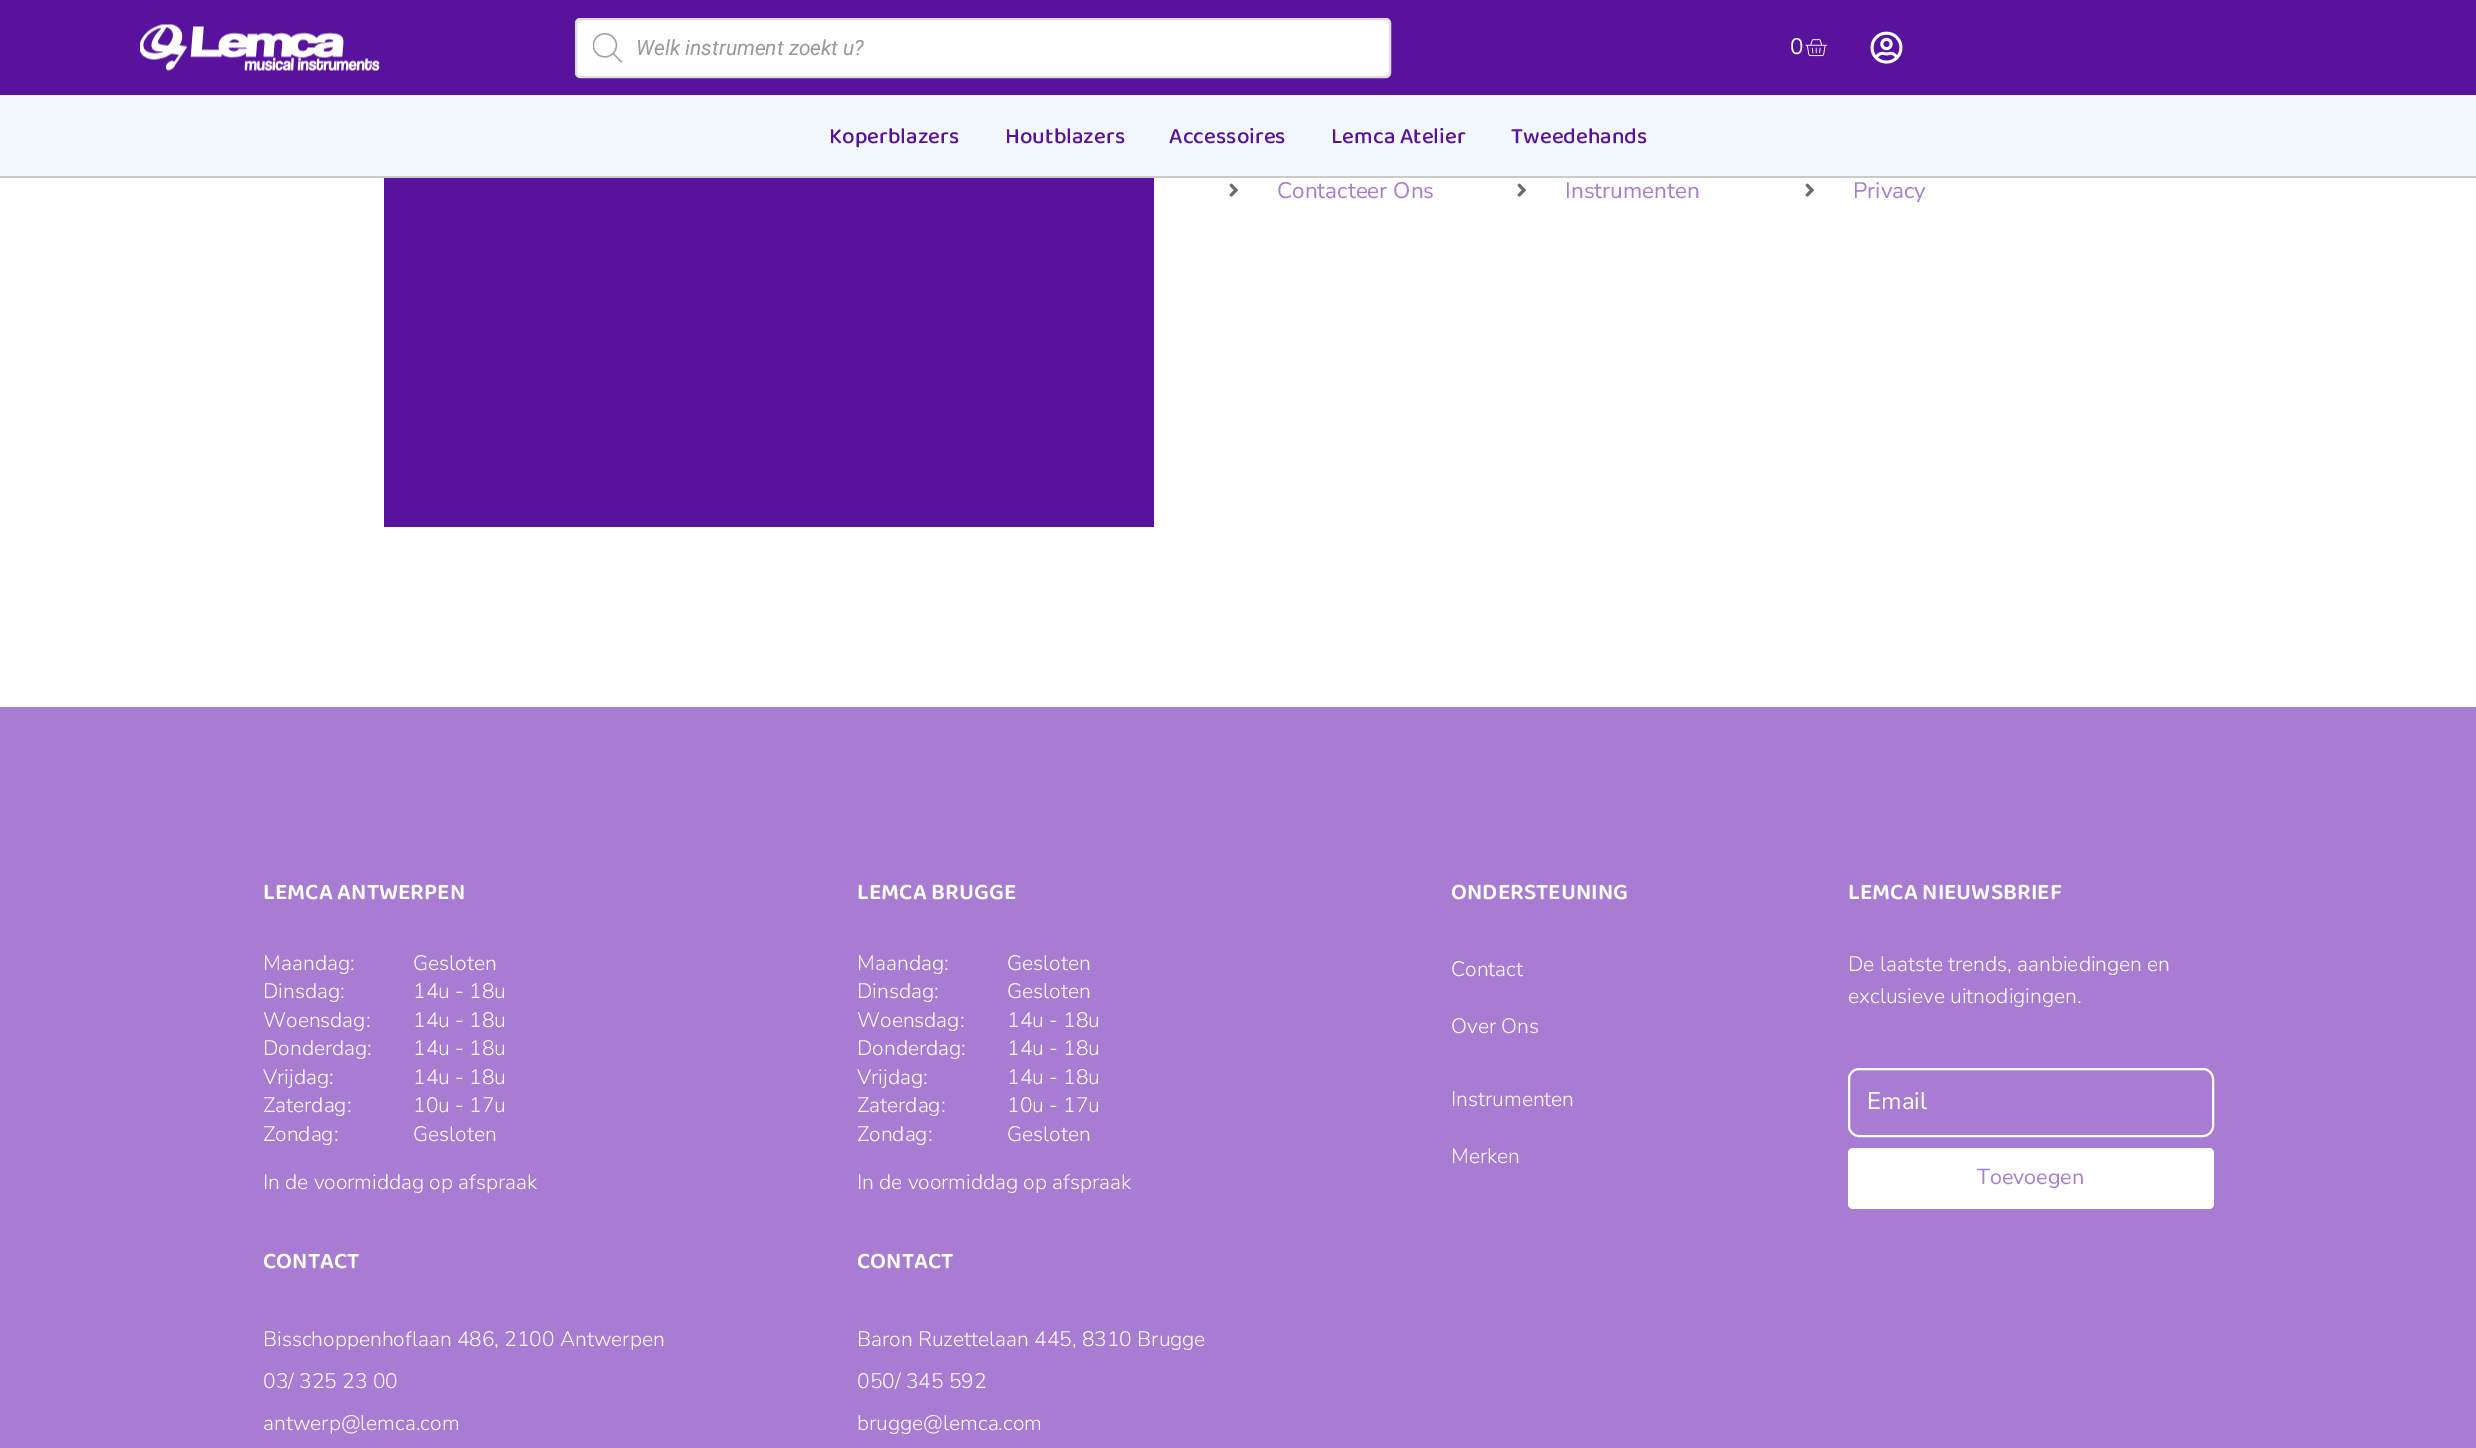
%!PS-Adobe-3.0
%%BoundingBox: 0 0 2476 1448
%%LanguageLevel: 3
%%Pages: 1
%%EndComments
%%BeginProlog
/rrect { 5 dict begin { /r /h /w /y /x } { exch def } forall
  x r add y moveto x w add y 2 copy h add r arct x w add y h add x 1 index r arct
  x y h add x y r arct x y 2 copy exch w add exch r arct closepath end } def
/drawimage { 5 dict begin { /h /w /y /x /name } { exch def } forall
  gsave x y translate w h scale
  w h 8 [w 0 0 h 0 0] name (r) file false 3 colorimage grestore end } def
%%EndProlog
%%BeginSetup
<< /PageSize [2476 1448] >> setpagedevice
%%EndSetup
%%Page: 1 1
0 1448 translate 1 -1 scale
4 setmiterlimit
1 setgray
0 0 2476 1448 rectfill
0.345 0.071 0.612 setrgbcolor
0 0 2476 95 rectfill
(images/1.raw) 140 24 240 47 drawimage
1 setgray
576 19 814 58 4 rrect gsave fill grestore
0.867 setgray
2 setlinewidth
stroke
(images/2.raw) 593 33 30 30 drawimage
(images/3.raw) 1805 39 22 18 drawimage
(images/4.raw) 1870 31 33 33 drawimage
0.949 0.969 0.988 setrgbcolor
0 95 2476 81 rectfill
0.8 0.796 0.796 setrgbcolor
0 176 2476 2 rectfill
0.345 0.071 0.612 setrgbcolor
384 178 770 349 rectfill
(images/5.raw) 1229 183 9 14 drawimage
(images/5.raw) 1517 183 9 14 drawimage
(images/5.raw) 1805 183 9 14 drawimage
0.655 0.486 0.824 setrgbcolor
0 707 2476 741 rectfill
1 setgray
1849 1069 364 67 10 rrect stroke
1848 1148 366 61 5 rrect fill
/Roboto-Italic [21 0 0 -21 0 0] selectfont
0.6 setgray
636 55 moveto (Welk instrument zoekt u?) show
/NunitoSans-Regular [22.5 0 0 -22.5 0 0] selectfont
1 setgray
1790 54 moveto (0) show
/BalooChettan2-Medium [22.5 0 0 -22.5 0 0] selectfont
0.345 0.071 0.612 setrgbcolor
829 143 moveto (Koperblazers) show
1005 143 moveto (Houtblazers) show
1169 143 moveto (Accessoires) show
1331 143 moveto (Lemca Atelier) show
1511 143 moveto (Tweedehands) show
/NunitoSans-Regular [22.5 0 0 -22.5 0 0] selectfont
0.655 0.486 0.824 setrgbcolor
1277 198 moveto (Contacteer Ons) show
1565 198 moveto (Instrumenten) show
1853 198 moveto (Privacy) show
/BalooChettan2-SemiBold [23 0 0 -23 0 0] selectfont
1 setgray
263 899 moveto (LEMCA ANTWERPEN) show
/NunitoSans-Light [21 0 0 -21 0 0] selectfont
263 970 moveto (Maandag:) show
263 998 moveto (Dinsdag:) show
263 1027 moveto (Woensdag:) show
263 1055 moveto (Donderdag:) show
263 1084 moveto (Vrijdag:) show
263 1112 moveto (Zaterdag:) show
263 1141 moveto (Zondag:) show
413 970 moveto (Gesloten) show
413 998 moveto (14u - 18u) show
413 1027 moveto (14u - 18u) show
413 1055 moveto (14u - 18u) show
413 1084 moveto (14u - 18u) show
413 1112 moveto (10u - 17u) show
413 1141 moveto (Gesloten) show
263 1189 moveto (In de voormiddag op afspraak) show
/BalooChettan2-SemiBold [23 0 0 -23 0 0] selectfont
263 1268 moveto (CONTACT) show
/NunitoSans-Light [21 0 0 -21 0 0] selectfont
263 1346 moveto (Bisschoppenhoflaan 486, 2100 Antwerpen) show
263 1388 moveto (03/ 325 23 00) show
263 1430 moveto (antwerp@lemca.com) show
/BalooChettan2-SemiBold [23 0 0 -23 0 0] selectfont
857 899 moveto (LEMCA BRUGGE) show
/NunitoSans-Light [21 0 0 -21 0 0] selectfont
857 970 moveto (Maandag:) show
857 998 moveto (Dinsdag:) show
857 1027 moveto (Woensdag:) show
857 1055 moveto (Donderdag:) show
857 1084 moveto (Vrijdag:) show
857 1112 moveto (Zaterdag:) show
857 1141 moveto (Zondag:) show
1007 970 moveto (Gesloten) show
1007 998 moveto (Gesloten) show
1007 1027 moveto (14u - 18u) show
1007 1055 moveto (14u - 18u) show
1007 1084 moveto (14u - 18u) show
1007 1112 moveto (10u - 17u) show
1007 1141 moveto (Gesloten) show
857 1189 moveto (In de voormiddag op afspraak) show
/BalooChettan2-SemiBold [23 0 0 -23 0 0] selectfont
857 1268 moveto (CONTACT) show
/NunitoSans-Light [21 0 0 -21 0 0] selectfont
857 1346 moveto (Baron Ruzettelaan 445, 8310 Brugge) show
857 1388 moveto (050/ 345 592) show
857 1430 moveto (brugge@lemca.com) show
/BalooChettan2-SemiBold [23 0 0 -23 0 0] selectfont
1451 899 moveto (ONDERSTEUNING) show
/NunitoSans-Light [21 0 0 -21 0 0] selectfont
1451 976 moveto (Contact) show
1451 1033 moveto (Over Ons) show
1451 1106 moveto (Instrumenten) show
1451 1163 moveto (Merken) show
/BalooChettan2-SemiBold [23 0 0 -23 0 0] selectfont
1848 899 moveto (LEMCA NIEUWSBRIEF) show
/NunitoSans-Light [21 0 0 -21 0 0] selectfont
1848 971 moveto (De laatste trends, aanbiedingen en) show
1848 1003 moveto (exclusieve uitnodigingen.) show
/NunitoSans-Regular [24 0 0 -24 0 0] selectfont
1867 1109 moveto (Email) show
/NunitoSans-Regular [21.5 0 0 -21.5 0 0] selectfont
0.655 0.486 0.824 setrgbcolor
1977 1184 moveto (Toevoegen) show
showpage
%%EOF
